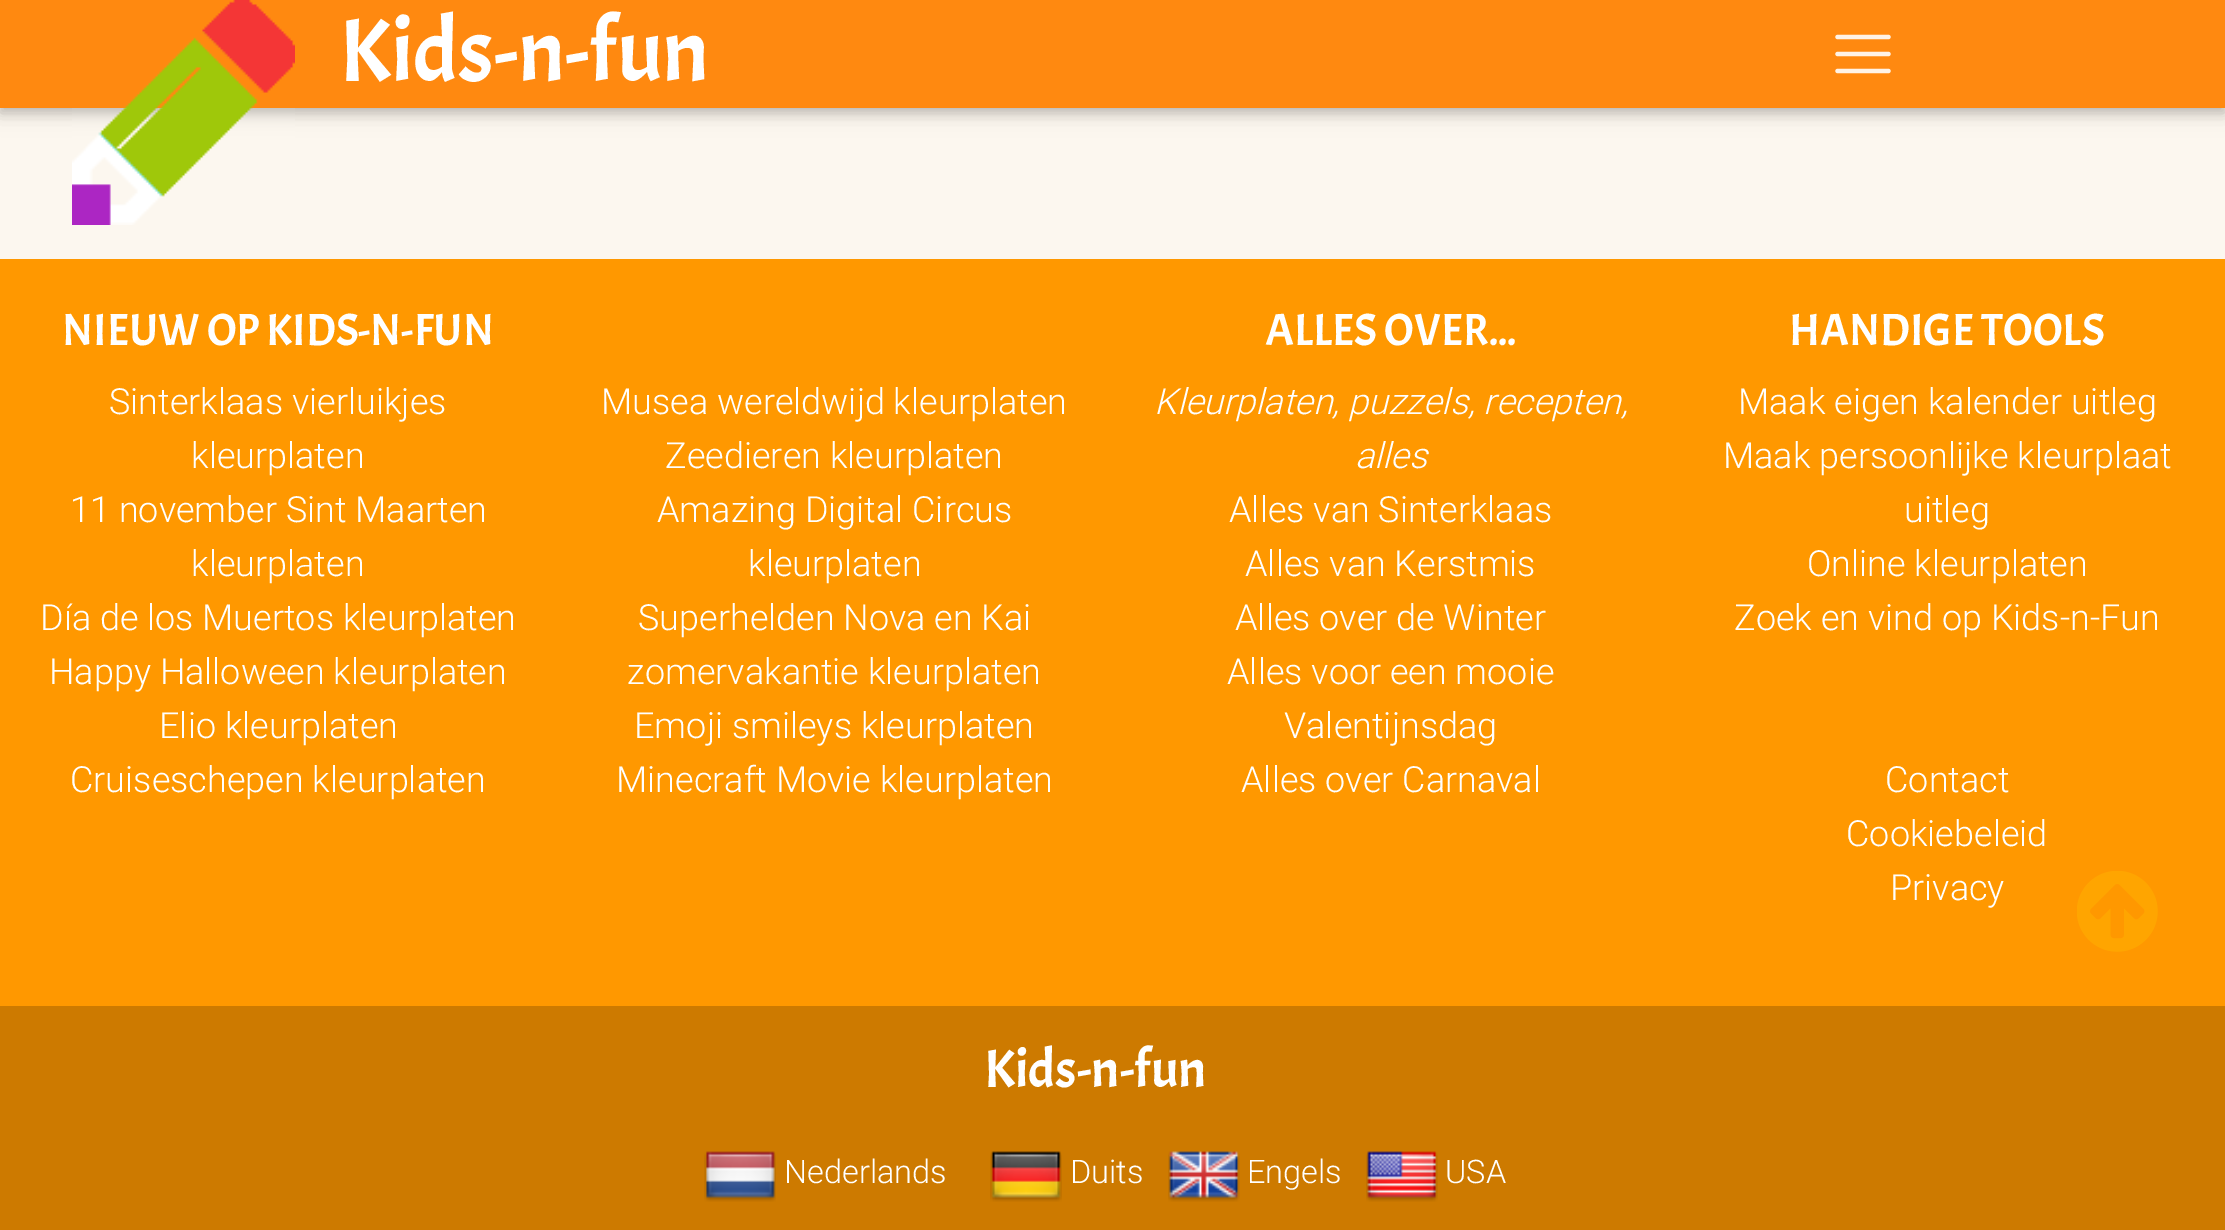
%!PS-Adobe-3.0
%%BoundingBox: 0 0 2225 1230
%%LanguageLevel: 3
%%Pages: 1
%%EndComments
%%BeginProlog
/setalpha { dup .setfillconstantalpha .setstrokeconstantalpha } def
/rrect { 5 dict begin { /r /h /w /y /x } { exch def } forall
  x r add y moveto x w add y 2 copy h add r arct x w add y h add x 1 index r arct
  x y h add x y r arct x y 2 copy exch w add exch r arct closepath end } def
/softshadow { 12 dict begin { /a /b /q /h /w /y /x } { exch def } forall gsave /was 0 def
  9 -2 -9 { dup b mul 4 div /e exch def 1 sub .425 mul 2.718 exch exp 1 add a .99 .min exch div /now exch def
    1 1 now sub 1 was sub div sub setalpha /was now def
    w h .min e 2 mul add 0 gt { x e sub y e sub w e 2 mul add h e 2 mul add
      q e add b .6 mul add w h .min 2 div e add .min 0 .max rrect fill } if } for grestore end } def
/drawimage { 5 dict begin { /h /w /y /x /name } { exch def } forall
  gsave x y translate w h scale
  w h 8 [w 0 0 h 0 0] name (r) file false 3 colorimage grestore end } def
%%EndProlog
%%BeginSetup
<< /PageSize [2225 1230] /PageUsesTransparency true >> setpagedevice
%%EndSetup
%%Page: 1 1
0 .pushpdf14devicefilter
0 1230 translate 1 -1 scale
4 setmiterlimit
0.988 0.969 0.937 setrgbcolor
0 0 2225 1230 rectfill
0 setgray
0 5 2225 108 0 11 0.12 softshadow
0 5 2225 108 0 5.5 0.16 softshadow
1 0.537 0.063 setrgbcolor
0 0 2225 108 rectfill
(images/1.raw) 72 0 223 225 drawimage
1 0.953 0.906 setrgbcolor
4.2 setlinewidth
1 setlinecap
newpath 1837.5 37 moveto 1888.5 37 lineto 1837.5 54 moveto 1888.5 54 lineto 1837.5 71 moveto 1888.5 71 lineto stroke
1 0.596 0 setrgbcolor
0 259 2225 747 rectfill
0.804 0.478 0 setrgbcolor
0 1006 2225 224 rectfill
(images/2.raw) 704 1151 72 51 drawimage
(images/3.raw) 990 1151 72 51 drawimage
(images/4.raw) 1168 1151 72 51 drawimage
(images/5.raw) 1366 1151 72 51 drawimage
(images/6.raw) 2077 871 81 81 drawimage
/Acme-Regular [90 0 0 -90 0 0] selectfont
1 setgray
339 81 moveto (Kids-n-fun) show
/Acme-Regular [45 0 0 -45 0 0] selectfont
62 345 moveto (NIEUW OP KIDS-N-FUN) show
/Roboto-Light [36 0 0 -36 0 0] selectfont
109 414 moveto (Sinterklaas vierluikjes) show
191 468 moveto (kleurplaten) show
70 522 moveto (11 november Sint Maarten) show
191 576 moveto (kleurplaten) show
40 630 moveto (Día de los Muertos kleurplaten) show
49 684 moveto (Happy Halloween kleurplaten) show
159 738 moveto (Elio kleurplaten) show
70 792 moveto (Cruiseschepen kleurplaten) show
601 414 moveto (Musea wereldwijd kleurplaten) show
665 468 moveto (Zeedieren kleurplaten) show
657 522 moveto (Amazing Digital Circus) show
748 576 moveto (kleurplaten) show
638 630 moveto (Superhelden Nova en Kai) show
627 684 moveto (zomervakantie kleurplaten) show
634 738 moveto (Emoji smileys kleurplaten) show
616 792 moveto (Minecraft Movie kleurplaten) show
/Acme-Regular [45 0 0 -45 0 0] selectfont
1265 345 moveto (ALLES OVER...) show
/Roboto-LightItalic [36 0 0 -36 0 0] selectfont
1154 414 moveto (Kleurplaten, puzzels, recepten,) show
1355 468 moveto (alles) show
/Roboto-Light [36 0 0 -36 0 0] selectfont
1229 522 moveto (Alles van Sinterklaas) show
1245 576 moveto (Alles van Kerstmis) show
1235 630 moveto (Alles over de Winter) show
1227 684 moveto (Alles voor een mooie) show
1284 738 moveto (Valentijnsdag) show
1241 792 moveto (Alles over Carnaval) show
/Acme-Regular [45 0 0 -45 0 0] selectfont
1789 345 moveto (HANDIGE TOOLS) show
/Roboto-Light [36 0 0 -36 0 0] selectfont
1738 414 moveto (Maak eigen kalender uitleg) show
1723 468 moveto (Maak persoonlijke kleurplaat) show
1904 522 moveto (uitleg) show
1807 576 moveto (Online kleurplaten) show
1734 630 moveto (Zoek en vind op Kids-n-Fun) show
1885 792 moveto (Contact) show
1846 846 moveto (Cookiebeleid) show
1890 900 moveto (Privacy) show
/Acme-Regular [54 0 0 -54 0 0] selectfont
984 1087 moveto (Kids-n-fun) show
/Roboto-Light [32.5 0 0 -32.5 0 0] selectfont
784 1183 moveto (Nederlands) show
1070 1183 moveto (Duits) show
1247 1183 moveto (Engels) show
1445 1183 moveto (USA) show
.poppdf14devicefilter showpage
%%EOF
